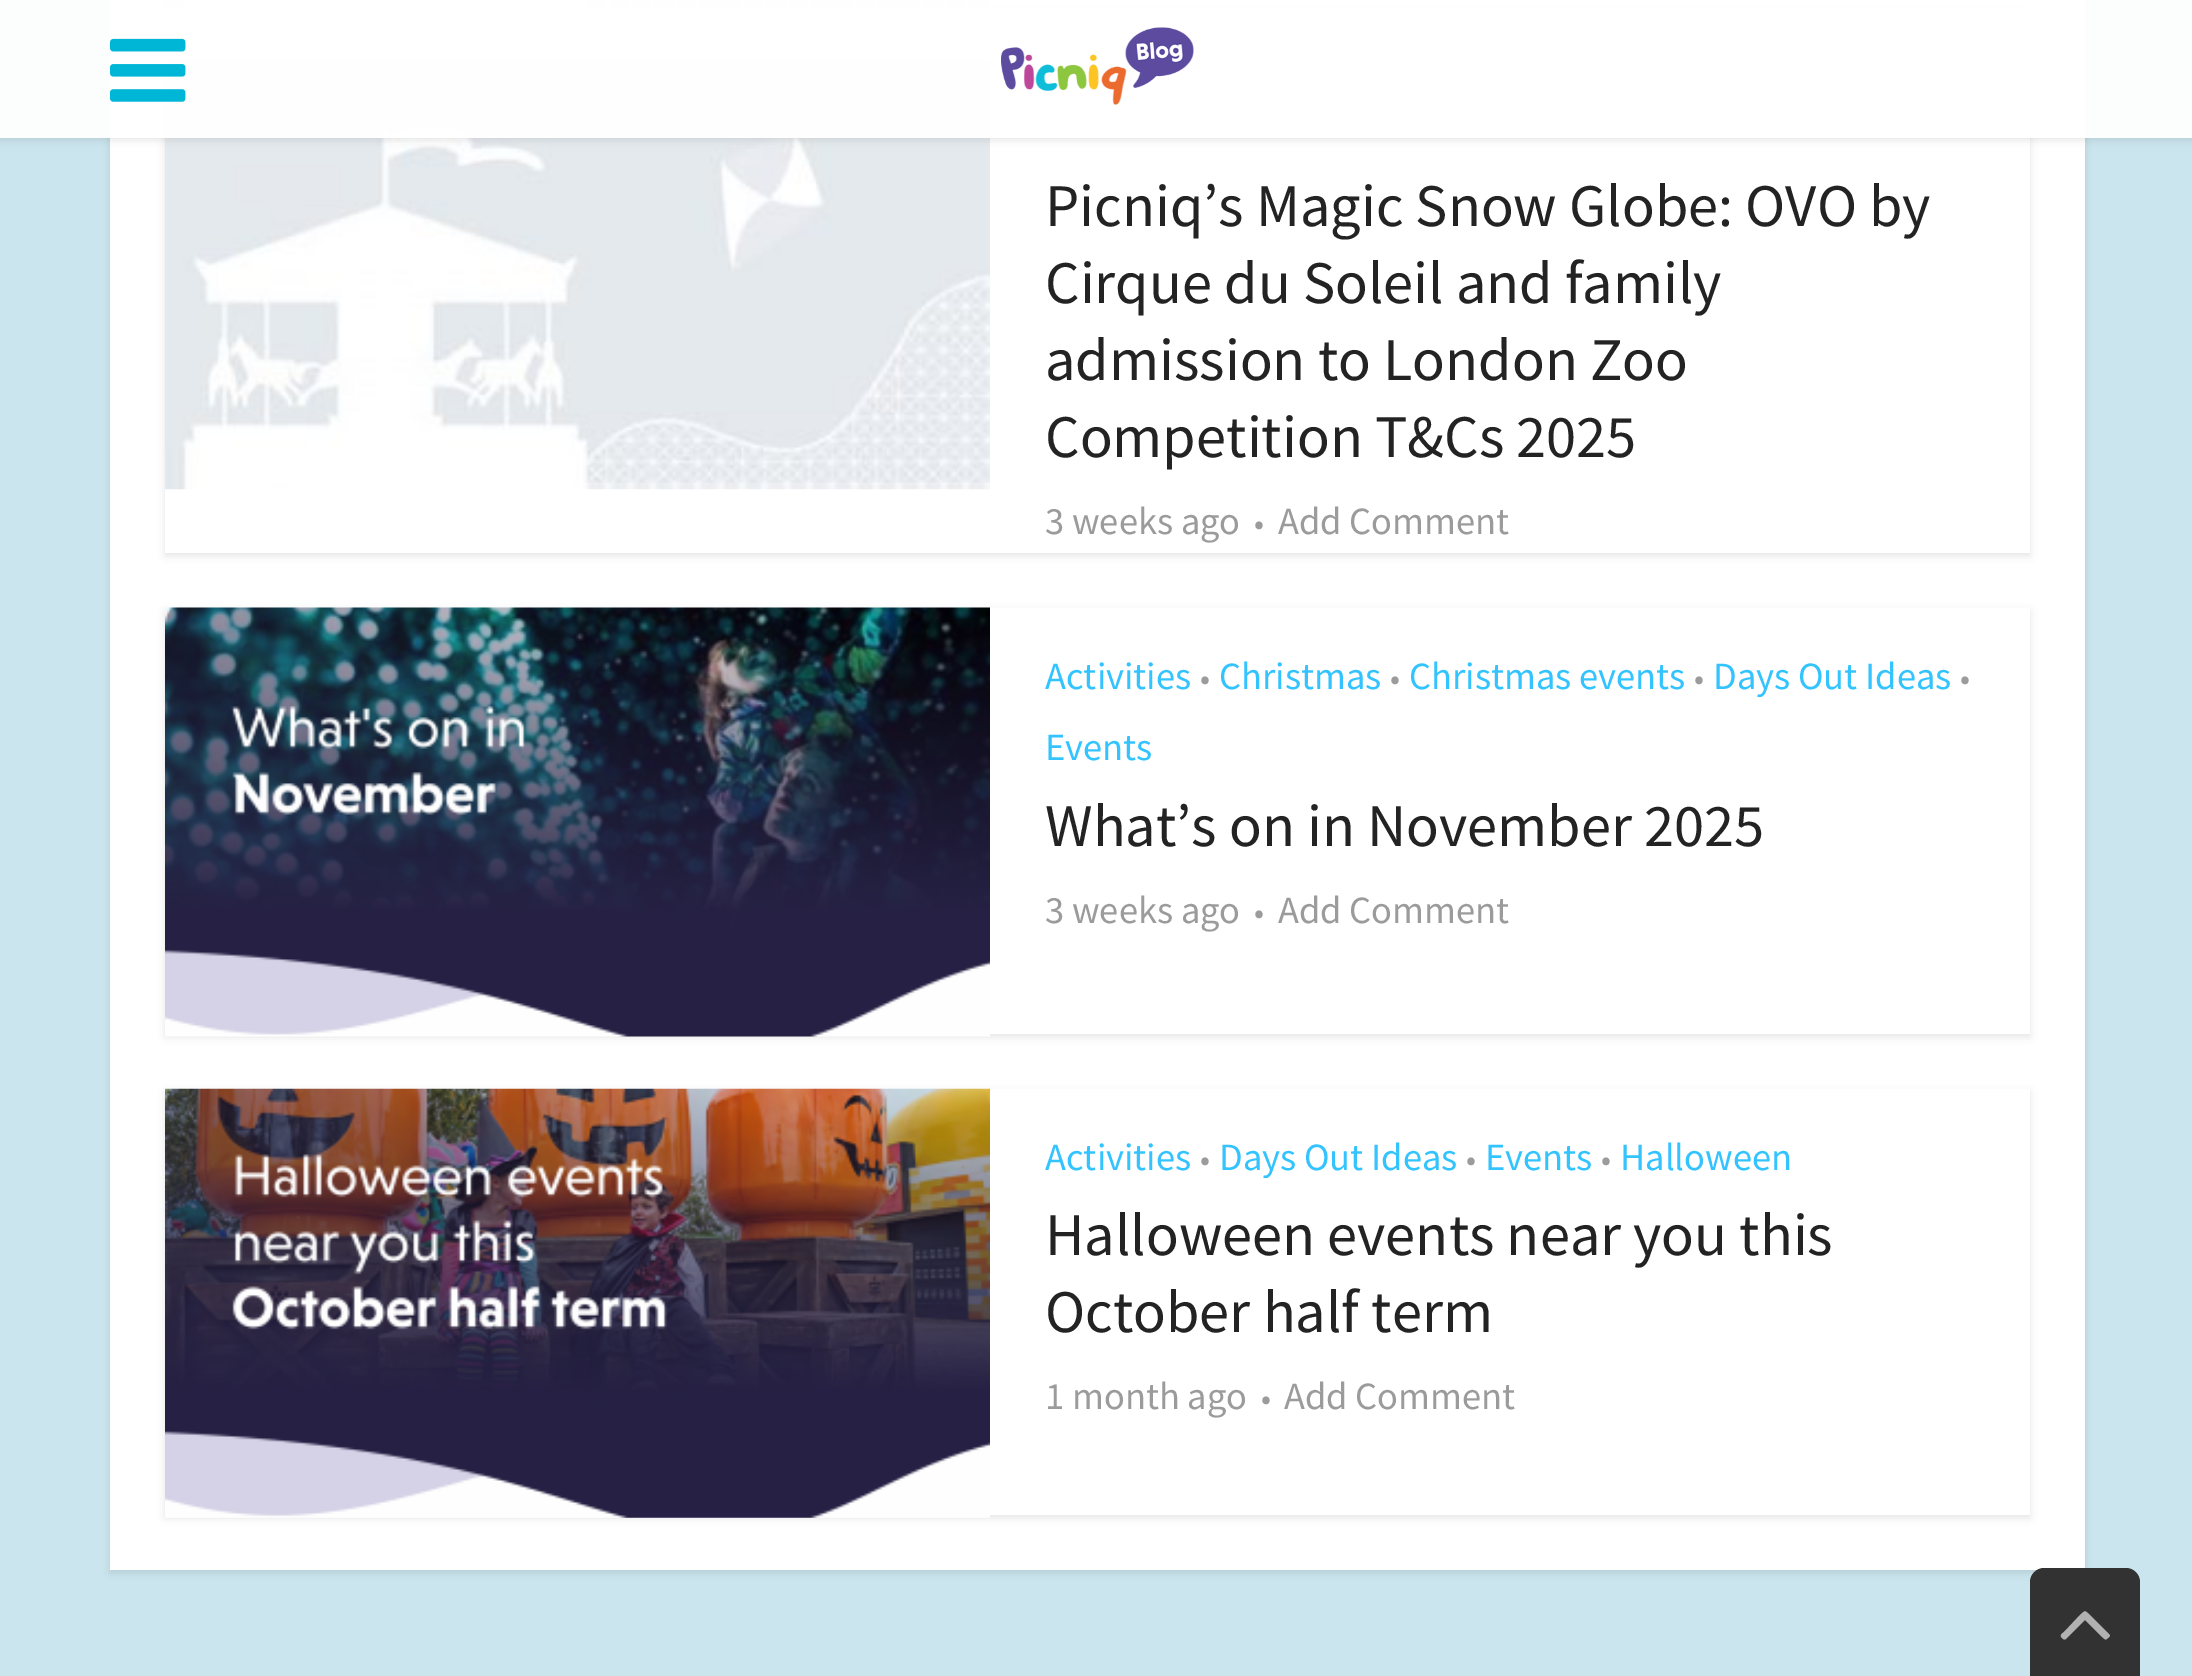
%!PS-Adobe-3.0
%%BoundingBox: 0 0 2192 1676
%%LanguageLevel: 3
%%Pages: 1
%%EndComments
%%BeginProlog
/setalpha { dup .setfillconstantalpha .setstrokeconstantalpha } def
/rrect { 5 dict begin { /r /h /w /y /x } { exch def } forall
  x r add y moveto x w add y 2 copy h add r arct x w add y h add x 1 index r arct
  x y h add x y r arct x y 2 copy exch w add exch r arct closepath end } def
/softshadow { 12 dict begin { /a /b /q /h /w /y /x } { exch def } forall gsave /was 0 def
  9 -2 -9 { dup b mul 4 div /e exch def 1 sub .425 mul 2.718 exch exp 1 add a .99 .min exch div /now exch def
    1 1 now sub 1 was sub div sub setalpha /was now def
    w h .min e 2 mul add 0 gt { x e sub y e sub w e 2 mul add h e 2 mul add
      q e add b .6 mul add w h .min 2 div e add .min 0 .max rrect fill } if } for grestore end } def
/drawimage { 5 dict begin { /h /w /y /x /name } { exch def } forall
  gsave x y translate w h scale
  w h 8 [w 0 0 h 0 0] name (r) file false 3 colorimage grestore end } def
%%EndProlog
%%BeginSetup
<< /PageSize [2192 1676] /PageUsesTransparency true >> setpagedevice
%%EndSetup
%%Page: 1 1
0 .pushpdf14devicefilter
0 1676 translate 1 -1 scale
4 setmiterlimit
0.796 0.898 0.933 setrgbcolor
0 0 2192 1676 rectfill
0 setgray
110 -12 1975 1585 0 4 0.1 softshadow
1 setgray
110 0 1975 1570 rectfill
0 setgray
165 -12 1865 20 0 4 0.1 softshadow
1 setgray
990 0 1040 6 rectfill
(images/3.raw) 165 0 825 8 drawimage
0 setgray
165 63 1865 493 0 4 0.1 softshadow
1 setgray
165 61 1865 492 rectfill
(images/4.raw) 165 60 825 430 drawimage
gsave
newpath 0 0 moveto 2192 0 lineto 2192 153 lineto 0 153 lineto closepath 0 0 moveto 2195 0 lineto 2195 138 lineto 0 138 lineto closepath eoclip newpath
0 setgray
0 3 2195 137 0 4 0.1 softshadow
grestore
0.95 setalpha
0 0 2192 138 rectfill
1 setalpha
(images/1.raw) 110 38 76 64 drawimage
(images/2.raw) 1001 27 193 78 drawimage
0 setgray
165 611 1865 426 0 4 0.1 softshadow
1 setgray
990 608 1040 426 rectfill
(images/5.raw) 165 607 825 430 drawimage
0 setgray
165 1092 1865 426 0 4 0.1 softshadow
1 setgray
990 1089 1040 426 rectfill
(images/6.raw) 165 1088 825 430 drawimage
0.196 setgray
newpath 2044 1568 moveto 2126 1568 lineto 2133.5 1568 2140 1574.5 2140 1582 curveto 2140 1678 lineto 2030 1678 lineto 2030 1582 lineto 2030 1574.5 2036.5 1568 2044 1568 curveto closepath fill
0.694 setgray
newpath 2109 1634 moveto 2111 1636 2109 1637 2108 1638 curveto 2105 1641 2105 1639 2101 1636 curveto 2085 1620 lineto 2066 1639 lineto 2064 1640 2063 1639 2062 1638 curveto 2059 1635 2062 1634 2065 1631 curveto 2080 1615 lineto 2086 1610 2084 1610 2090 1615 curveto closepath fill
/SourceSansPro-Regular [60.5 0 0 -60.5 0 0] selectfont
0.137 setgray
1045 226 moveto (Picniq’s Magic Snow Globe: OVO by) show
1045 303 moveto (Cirque du Soleil and family) show
1045 380 moveto (admission to London Zoo) show
1045 457 moveto (Competition T&Cs 2025) show
/SourceSansPro-Regular [38.5 0 0 -38.5 0 0] selectfont
0.608 setgray
1045 534 moveto (3 weeks ago) show
/SourceSansPro-Regular [33 0 0 -33 0 0] selectfont
1254 534 moveto (•) show
/SourceSansPro-Regular [38.5 0 0 -38.5 0 0] selectfont
1278 534 moveto (Add Comment) show
0.2 0.765 1 setrgbcolor
1045 689 moveto (Activities) show
/SourceSansPro-Regular [33 0 0 -33 0 0] selectfont
0.608 setgray
1200 689 moveto (•) show
/SourceSansPro-Regular [38.5 0 0 -38.5 0 0] selectfont
0.2 0.765 1 setrgbcolor
1219 689 moveto (Christmas) show
/SourceSansPro-Regular [33 0 0 -33 0 0] selectfont
0.608 setgray
1390 689 moveto (•) show
/SourceSansPro-Regular [38.5 0 0 -38.5 0 0] selectfont
0.2 0.765 1 setrgbcolor
1409 689 moveto (Christmas events) show
/SourceSansPro-Regular [33 0 0 -33 0 0] selectfont
0.608 setgray
1694 689 moveto (•) show
/SourceSansPro-Regular [38.5 0 0 -38.5 0 0] selectfont
0.2 0.765 1 setrgbcolor
1713 689 moveto (Days Out Ideas) show
/SourceSansPro-Regular [33 0 0 -33 0 0] selectfont
0.608 setgray
1960 689 moveto (•) show
/SourceSansPro-Regular [38.5 0 0 -38.5 0 0] selectfont
0.2 0.765 1 setrgbcolor
1045 760 moveto (Events) show
/SourceSansPro-Regular [60.5 0 0 -60.5 0 0] selectfont
0.137 setgray
1045 846 moveto (What’s on in November 2025) show
/SourceSansPro-Regular [38.5 0 0 -38.5 0 0] selectfont
0.608 setgray
1045 923 moveto (3 weeks ago) show
/SourceSansPro-Regular [33 0 0 -33 0 0] selectfont
1254 923 moveto (•) show
/SourceSansPro-Regular [38.5 0 0 -38.5 0 0] selectfont
1278 923 moveto (Add Comment) show
0.2 0.765 1 setrgbcolor
1045 1170 moveto (Activities) show
/SourceSansPro-Regular [33 0 0 -33 0 0] selectfont
0.608 setgray
1200 1170 moveto (•) show
/SourceSansPro-Regular [38.5 0 0 -38.5 0 0] selectfont
0.2 0.765 1 setrgbcolor
1219 1170 moveto (Days Out Ideas) show
/SourceSansPro-Regular [33 0 0 -33 0 0] selectfont
0.608 setgray
1466 1170 moveto (•) show
/SourceSansPro-Regular [38.5 0 0 -38.5 0 0] selectfont
0.2 0.765 1 setrgbcolor
1485 1170 moveto (Events) show
/SourceSansPro-Regular [33 0 0 -33 0 0] selectfont
0.608 setgray
1601 1170 moveto (•) show
/SourceSansPro-Regular [38.5 0 0 -38.5 0 0] selectfont
0.2 0.765 1 setrgbcolor
1620 1170 moveto (Halloween) show
/SourceSansPro-Regular [60.5 0 0 -60.5 0 0] selectfont
0.137 setgray
1045 1255 moveto (Halloween events near you this) show
1045 1332 moveto (October half term) show
/SourceSansPro-Regular [38.5 0 0 -38.5 0 0] selectfont
0.608 setgray
1045 1409 moveto (1 month ago) show
/SourceSansPro-Regular [33 0 0 -33 0 0] selectfont
1261 1409 moveto (•) show
/SourceSansPro-Regular [38.5 0 0 -38.5 0 0] selectfont
1284 1409 moveto (Add Comment) show
.poppdf14devicefilter showpage
%%EOF
